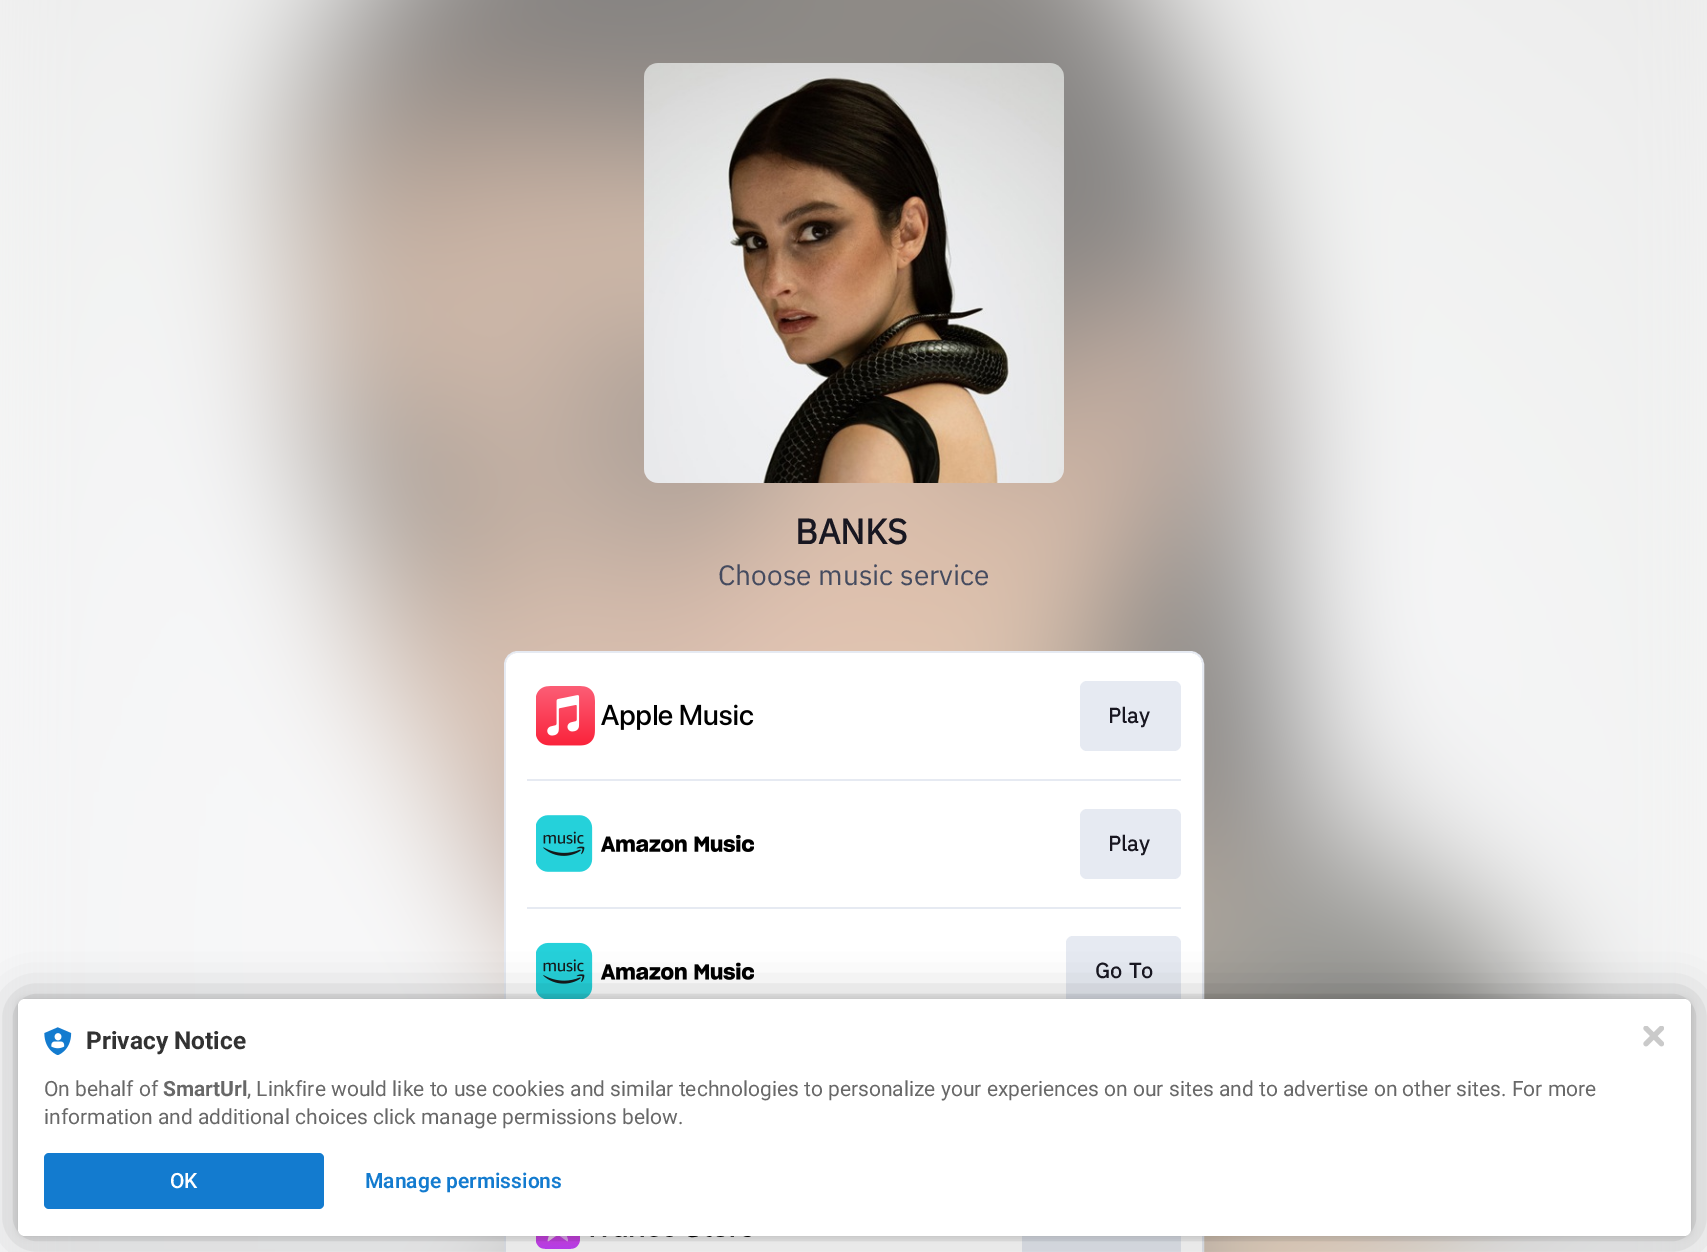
%!PS-Adobe-3.0
%%BoundingBox: 0 0 1707 1252
%%LanguageLevel: 3
%%Pages: 1
%%EndComments
%%BeginProlog
/setalpha { dup .setfillconstantalpha .setstrokeconstantalpha } def
/rrect { 5 dict begin { /r /h /w /y /x } { exch def } forall
  x r add y moveto x w add y 2 copy h add r arct x w add y h add x 1 index r arct
  x y h add x y r arct x y 2 copy exch w add exch r arct closepath end } def
/softshadow { 12 dict begin { /a /b /q /h /w /y /x } { exch def } forall gsave /was 0 def
  9 -2 -9 { dup b mul 4 div /e exch def 1 sub .425 mul 2.718 exch exp 1 add a .99 .min exch div /now exch def
    1 1 now sub 1 was sub div sub setalpha /was now def
    w h .min e 2 mul add 0 gt { x e sub y e sub w e 2 mul add h e 2 mul add
      q e add b .6 mul add w h .min 2 div e add .min 0 .max rrect fill } if } for grestore end } def
/drawimage { 5 dict begin { /h /w /y /x /name } { exch def } forall
  gsave x y translate w h scale
  w h 8 [w 0 0 h 0 0] name (r) file false 3 colorimage grestore end } def
%%EndProlog
%%BeginSetup
<< /PageSize [1707 1252] /PageUsesTransparency true >> setpagedevice
%%EndSetup
%%Page: 1 1
0 .pushpdf14devicefilter
0 1252 translate 1 -1 scale
4 setmiterlimit
1 setgray
0 0 1707 1252 rectfill
(images/1.raw) 0 0 1707 1252 drawimage
(images/2.raw) 644 63 420 420 drawimage
0.902 0.918 0.949 setrgbcolor
2 setlinewidth
505 652 698 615 13 rrect stroke
1 setgray
506 653 696 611 12 rrect fill
(images/3.raw) 536 686 218 60 drawimage
0.902 0.918 0.949 setrgbcolor
1080 681 101 70 7 rrect fill
527 779 654 2 rectfill
(images/4.raw) 536 815 218 57 drawimage
1080 809 101 70 7 rrect fill
527 907 654 2 rectfill
(images/5.raw) 536 942 218 57 drawimage
1066 936 115 70 7 rrect fill
(images/6.raw) 536 1236 215 13 drawimage
1022 1236 159 16 rectfill
0 setgray
18 999 1673 237 7 3.5 0.12 softshadow
18 999 1673 237 7 21 0.3 softshadow
1 setgray
18 999 1673 237 7 rrect fill
(images/7.raw) 44 1027 28 28 drawimage
0.075 0.482 0.812 setrgbcolor
44 1153 280 56 5 rrect fill
(images/8.raw) 1643 1026 21 21 drawimage
/IBMPlexSans-Bold [35 0 0 -35 0 0] selectfont
0.094 0.09 0.129 setrgbcolor
795 544 moveto (BANKS) show
/IBMPlexSans-Regular [28 0 0 -28 0 0] selectfont
0.271 0.294 0.373 setrgbcolor
718 585 moveto (Choose music service) show
/IBMPlexSans-Bold [21 0 0 -21 0 0] selectfont
0.094 0.09 0.129 setrgbcolor
1108 723 moveto 0.5 0 (Play) ashow
1108 851 moveto 0.5 0 (Play) ashow
1095 978 moveto 1 0 32 0.5 0 (Go To) awidthshow
/Roboto-Bold [24.5 0 0 -24.5 0 0] selectfont
0.196 setgray
86 1049 moveto (Privacy Notice) show
/Roboto-Regular [21 0 0 -21 0 0] selectfont
0.408 setgray
44 1096 moveto (On behalf of) show
/Roboto-Bold [21 0 0 -21 0 0] selectfont
163 1096 moveto (SmartUrl) show
/Roboto-Regular [21 0 0 -21 0 0] selectfont
247 1096 moveto (, Linkfire would like to use cookies and similar technologies to personalize your experiences on our sites and to advertise on other sites. For more) show
44 1124 moveto (information and additional choices click manage permissions below.) show
/Roboto-Medium [21 0 0 -21 0 0] selectfont
1 setgray
170 1188 moveto (OK) show
/Roboto-SemiBold [21 0 0 -21 0 0] selectfont
0.075 0.482 0.812 setrgbcolor
365 1188 moveto (Manage permissions) show
.poppdf14devicefilter showpage
%%EOF
